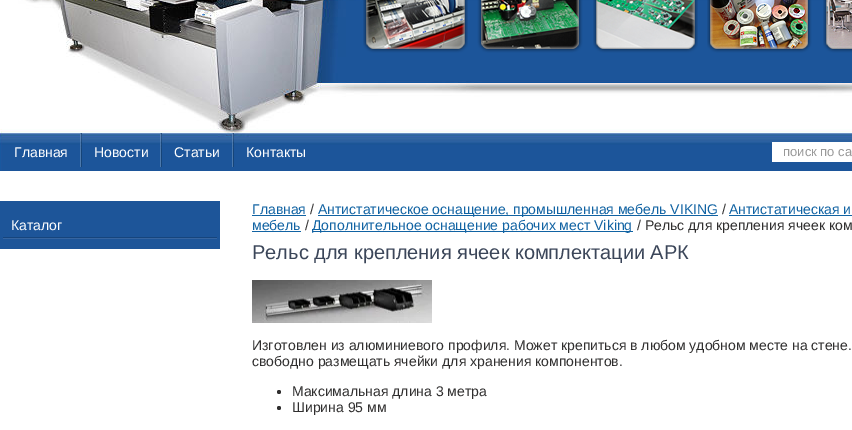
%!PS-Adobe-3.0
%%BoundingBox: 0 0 852 430
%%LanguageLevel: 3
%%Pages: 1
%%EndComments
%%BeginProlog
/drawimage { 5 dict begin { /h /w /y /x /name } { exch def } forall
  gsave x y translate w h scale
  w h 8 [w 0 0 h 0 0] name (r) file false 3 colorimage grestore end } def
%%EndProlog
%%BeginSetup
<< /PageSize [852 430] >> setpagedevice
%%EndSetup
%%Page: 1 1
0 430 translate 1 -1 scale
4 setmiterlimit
1 setgray
0 0 852 430 rectfill
(images/1.raw) 0 0 852 171 drawimage
(images/2.raw) 363 0 105 53 drawimage
(images/3.raw) 477 0 106 53 drawimage
(images/4.raw) 593 0 105 53 drawimage
(images/5.raw) 707 0 105 53 drawimage
(images/6.raw) 823 0 29 53 drawimage
(images/7.raw) 80 133 2 34 drawimage
(images/7.raw) 160 133 2 34 drawimage
(images/7.raw) 232 133 2 34 drawimage
772 142 80 20 rectfill
0.114 0.333 0.6 setrgbcolor
0 201 220 48 rectfill
(images/8.raw) 3 237 214 2 drawimage
0.067 0.388 0.639 setrgbcolor
252 215 54 1 rectfill
318 215 400 1 rectfill
729 215 123 1 rectfill
252 231 49 1 rectfill
312 231 321 1 rectfill
(images/9.raw) 252 280 180 43 drawimage
0.188 0.184 0.184 setrgbcolor
newpath 279 392 2 0 360 arc closepath fill
newpath 279 408 2 0 360 arc closepath fill
/LiberationSans-Regular [14 0 0 -14 0 0] selectfont
1 setgray
14 157 moveto (Главная) show
94 157 moveto (Новости) show
174 157 moveto (Статьи) show
246 157 moveto (Контакты) show
/LiberationSans-Regular [13 0 0 -13 0 0] selectfont
0.6 setgray
783 156 moveto (поиск по са) show
/LiberationSans-Regular [14 0 0 -14 0 0] selectfont
1 setgray
11 230 moveto (Каталог) show
0.067 0.388 0.639 setrgbcolor
252 214 moveto (Главная) show
0.188 0.184 0.184 setrgbcolor
310 214 moveto (/) show
0.067 0.388 0.639 setrgbcolor
318 214 moveto (Антистатическое оснащение, промышленная мебель VIKING) show
0.188 0.184 0.184 setrgbcolor
722 214 moveto (/) show
0.067 0.388 0.639 setrgbcolor
729 214 moveto (Антистатическая и) show
252 230 moveto (мебель) show
0.188 0.184 0.184 setrgbcolor
305 230 moveto (/) show
0.067 0.388 0.639 setrgbcolor
312 230 moveto (Дополнительное оснащение рабочих мест Viking) show
0.188 0.184 0.184 setrgbcolor
637 230 moveto (/ Рельс для крепления ячеек ком) show
/LiberationSans-Regular [20 0 0 -20 0 0] selectfont
0.231 0.275 0.349 setrgbcolor
252 259 moveto (Рельс для крепления ячеек комплектации АРК) show
/LiberationSans-Regular [14 0 0 -14 0 0] selectfont
0.188 0.184 0.184 setrgbcolor
252 350 moveto (Изготовлен из алюминиевого профиля. Может крепиться в любом удобном месте на стене.) show
252 366 moveto (свободно размещать ячейки для хранения компонентов.) show
292 396 moveto (Максимальная длина 3 метра) show
292 412 moveto (Ширина 95 мм) show
showpage
%%EOF
